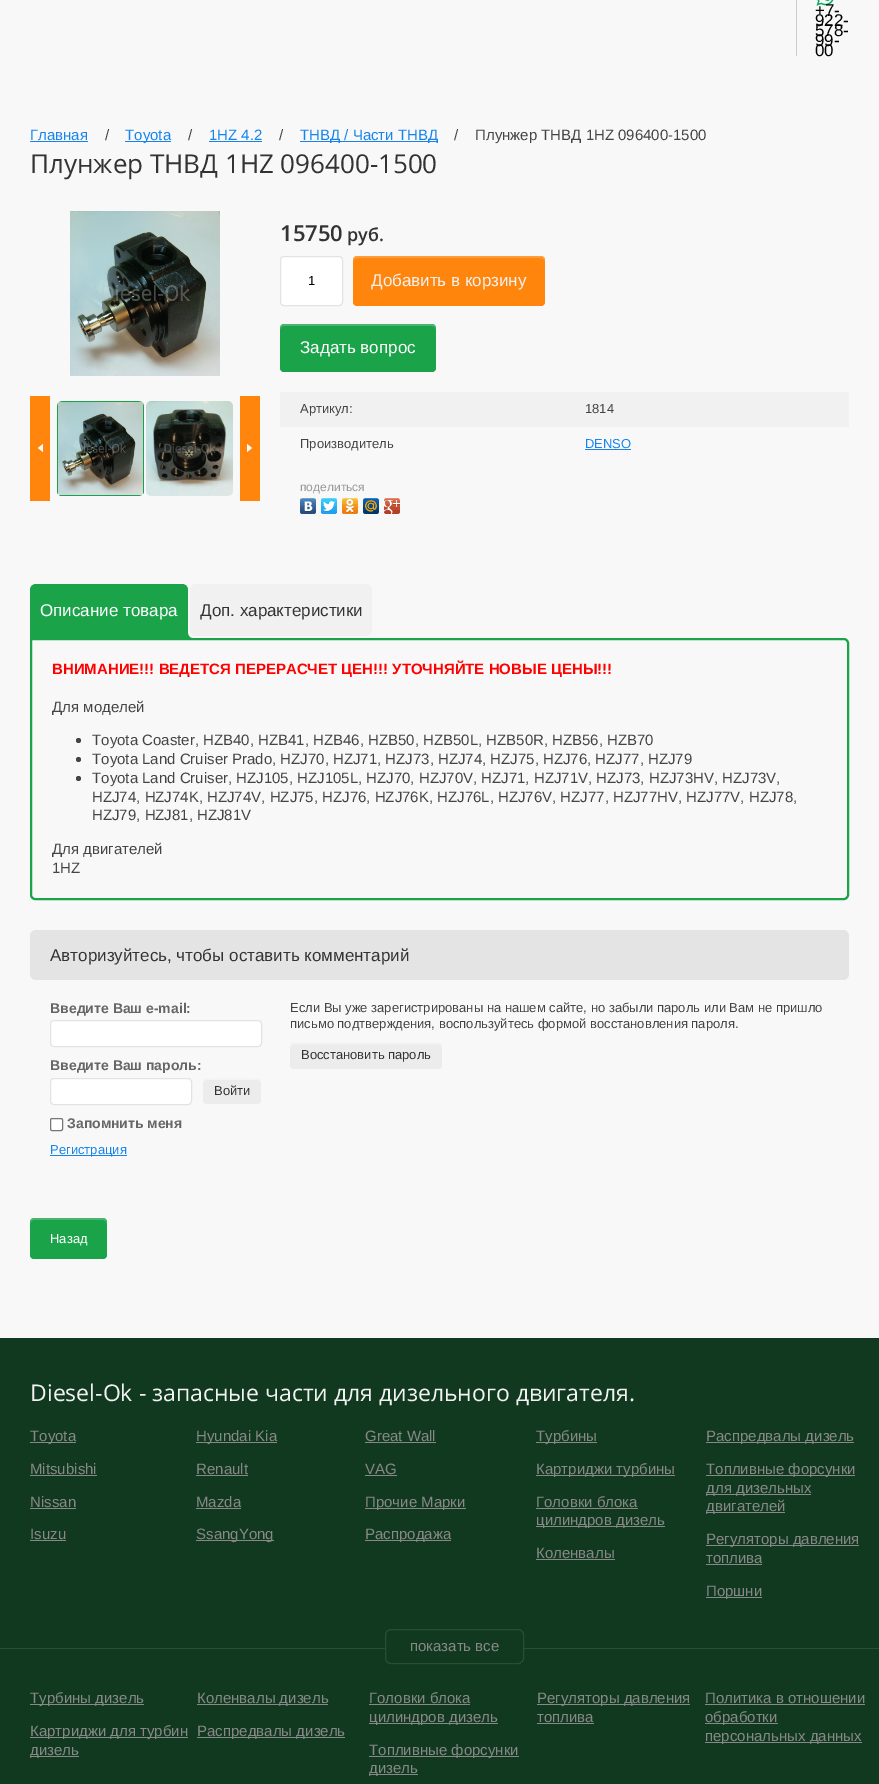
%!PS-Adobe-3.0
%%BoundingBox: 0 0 879 1784
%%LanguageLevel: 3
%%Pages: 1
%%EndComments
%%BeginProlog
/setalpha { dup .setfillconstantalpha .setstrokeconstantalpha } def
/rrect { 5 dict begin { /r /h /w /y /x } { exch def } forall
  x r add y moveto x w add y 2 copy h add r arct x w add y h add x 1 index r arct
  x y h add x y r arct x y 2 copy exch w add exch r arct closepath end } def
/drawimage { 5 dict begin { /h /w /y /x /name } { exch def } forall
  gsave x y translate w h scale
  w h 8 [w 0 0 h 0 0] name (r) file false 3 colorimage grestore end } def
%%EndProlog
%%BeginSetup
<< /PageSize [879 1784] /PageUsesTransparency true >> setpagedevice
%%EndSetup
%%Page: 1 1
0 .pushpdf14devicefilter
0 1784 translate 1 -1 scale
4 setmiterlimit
0.973 setgray
0 0 879 1784 rectfill
0.8 setgray
796 0 1 56 rectfill
(images/1.raw) 816 0 18 6 drawimage
0.086 0.518 0.922 setrgbcolor
30 141 58 1 rectfill
125 141 46 1 rectfill
209 141 53 1 rectfill
300 141 138 1 rectfill
(images/2.raw) 70 211 150 165 drawimage
1 0.522 0.051 setrgbcolor
30 396 20 105 rectfill
1 setgray
newpath 43 444 moveto 43 452 lineto 38 448 lineto closepath fill
0.106 0.639 0.29 setrgbcolor
newpath 57 406 moveto 57 491 lineto 57 492 57 493 58 494 curveto 58 403 lineto closepath 62 401 moveto 59 402 lineto 142 402 lineto 139 401 lineto closepath 144 406 moveto 143 403 lineto 143 494 lineto 144 493 144 492 144 491 curveto closepath 139 496 moveto 142 495 lineto 59 495 lineto 60 496 61 496 62 496 curveto closepath eofill
(images/3.raw) 58 402 85 93 drawimage
(images/4.raw) 146 401 87 95 drawimage
1 0.522 0.051 setrgbcolor
240 396 20 105 rectfill
1 setgray
newpath 247 452 moveto 247 444 lineto 252 448 lineto closepath fill
280.5 256.5 62 49 3.5 rrect gsave fill grestore
0.89 setgray
stroke
1 0.522 0.051 setrgbcolor
353 256 192 50 4 rrect fill
0.2 setalpha
1 setgray
newpath 357 258 moveto 541 258 lineto 543 258 545 260 545 262 curveto 545 260 lineto 545 258 543 256 541 256 curveto 357 256 lineto 355 256 353 258 353 260 curveto 353 262 lineto 353 260 355 258 357 258 curveto closepath fill
1 setalpha
0.106 0.639 0.29 setrgbcolor
280 324 156 48 4 rrect fill
0.2 setalpha
1 setgray
newpath 284 326 moveto 432 326 lineto 434 326 436 328 436 330 curveto 436 328 lineto 436 326 434 324 432 324 curveto 284 324 lineto 282 324 280 326 280 328 curveto 280 330 lineto 280 328 282 326 284 326 curveto closepath fill
1 setalpha
0.945 setgray
280 392 569 35 rectfill
0.086 0.518 0.922 setrgbcolor
585 449 46 1 rectfill
(images/5.raw) 300 498 16 16 drawimage
(images/6.raw) 321 498 16 16 drawimage
(images/7.raw) 342 498 16 16 drawimage
(images/8.raw) 363 498 16 16 drawimage
(images/9.raw) 384 498 16 16 drawimage
0.106 0.639 0.29 setrgbcolor
newpath 36 584 moveto 182 584 lineto 185.5 584 188 586.5 188 590 curveto 188 638 lineto 30 638 lineto 30 590 lineto 30 586.5 32.5 584 36 584 curveto closepath fill
(images/10.raw) 188 633 5 5 drawimage
0.945 setgray
190 584 182 52 6 rrect fill
0.106 0.639 0.29 setrgbcolor
2 setlinewidth
newpath 31 639 moveto 844 639 lineto 846 639 848 641 848 643 curveto 848 895 lineto 848 897 846 899 844 899 curveto 35 899 lineto 33 899 31 897 31 895 curveto closepath stroke
0.267 setgray
newpath 78.5 740.5 2.5 0 360 arc closepath fill
newpath 78.5 759.5 2.5 0 360 arc closepath fill
newpath 78.5 778.5 2.5 0 360 arc closepath fill
0.894 setgray
30 930 819 50 6 rrect fill
1 setgray
50.5 1020.5 211 26 3.5 rrect gsave fill grestore
0.89 setgray
1 setlinewidth
stroke
1 setgray
50.5 1078.5 141 26 3.5 rrect gsave fill grestore
0.89 setgray
stroke
0.925 setgray
203 1078 58 26 4 rrect fill
0.4 setalpha
1 setgray
newpath 207 1080 moveto 257 1080 lineto 259 1080 261 1082 261 1084 curveto 261 1076 256 1078 249 1078 curveto 215 1078 lineto 208 1078 203 1076 203 1084 curveto 203 1082 205 1080 207 1080 curveto closepath fill
1 setalpha
50.5 1118.5 12 12 1.5 rrect gsave fill grestore
0.463 setgray
stroke
0.086 0.518 0.922 setrgbcolor
50 1155 77 1 rectfill
0.925 setgray
290 1042 152 27 4 rrect fill
0.4 setalpha
1 setgray
newpath 294 1044 moveto 438 1044 lineto 440 1044 442 1046 442 1048 curveto 442 1046 lineto 442 1044 440 1042 438 1042 curveto 294 1042 lineto 292 1042 290 1044 290 1046 curveto 290 1048 lineto 290 1046 292 1044 294 1044 curveto closepath fill
1 setalpha
0.106 0.639 0.29 setrgbcolor
30 1218 77 41 4 rrect fill
0.2 setalpha
1 setgray
newpath 34 1220 moveto 103 1220 lineto 105 1220 107 1222 107 1224 curveto 107 1215 99 1218 92 1218 curveto 46 1218 lineto 38 1218 30 1215 30 1224 curveto 30 1222 32 1220 34 1220 curveto closepath fill
1 setalpha
0.067 0.224 0.122 setrgbcolor
0 1338 879 310 rectfill
0.161 0.302 0.208 setrgbcolor
0 1648 879 1 rectfill
0.533 setgray
30 1442 46 1 rectfill
30 1475 67 1 rectfill
30 1508 46 1 rectfill
30 1540 36 1 rectfill
196 1442 81 1 rectfill
196 1475 52 1 rectfill
196 1508 45 1 rectfill
196 1540 78 1 rectfill
365 1442 71 1 rectfill
365 1475 32 1 rectfill
365 1508 101 1 rectfill
365 1540 86 1 rectfill
536 1442 61 1 rectfill
536 1475 139 1 rectfill
536 1508 102 1 rectfill
536 1526 129 1 rectfill
536 1559 79 1 rectfill
706 1442 148 1 rectfill
706 1475 149 1 rectfill
706 1494 105 1 rectfill
706 1512 79 1 rectfill
706 1545 153 1 rectfill
706 1564 56 1 rectfill
706 1597 56 1 rectfill
0.067 0.224 0.122 setrgbcolor
0 1649 879 135 rectfill
385.5 1629.5 138 34 5.5 rrect gsave fill grestore
0.161 0.302 0.208 setrgbcolor
stroke
0.533 setgray
30 1704 114 1 rectfill
30 1737 158 1 rectfill
30 1756 49 1 rectfill
197 1704 131 1 rectfill
197 1737 148 1 rectfill
369 1704 101 1 rectfill
369 1723 129 1 rectfill
369 1756 150 1 rectfill
369 1774 49 1 rectfill
537 1704 153 1 rectfill
537 1723 57 1 rectfill
705 1704 160 1 rectfill
705 1723 73 1 rectfill
705 1742 157 1 rectfill
/LiberationSans-Regular [17 0 0 -17 0 0] selectfont
0 setgray
815 16 moveto (+7-) show
815 26 moveto (922-) show
815 36 moveto (578-) show
815 46 moveto (99-) show
815 56 moveto (00) show
/LiberationSans-Regular [15 0 0 -15 0 0] selectfont
0.086 0.518 0.922 setrgbcolor
30 140 moveto (Главная) show
0.267 setgray
105 140 moveto (/) show
0.086 0.518 0.922 setrgbcolor
125 140 moveto (Toyota) show
0.267 setgray
188 140 moveto (/) show
0.086 0.518 0.922 setrgbcolor
209 140 moveto (1HZ 4.2) show
0.267 setgray
279 140 moveto (/) show
0.086 0.518 0.922 setrgbcolor
300 140 moveto (ТНВД / Части ТНВД) show
0.267 setgray
454 140 moveto (/) show
475 140 moveto (Плунжер ТНВД 1HZ 096400-1500) show
/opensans-Regular [26 0 0 -26 0 0] selectfont
0.2 setgray
30 173 moveto (Плунжер ТНВД 1HZ 096400-1500) show
/OpenSans-SemiBold [22 0 0 -22 0 0] selectfont
280 241 moveto (15750) show
/OpenSans-SemiBold [18 0 0 -18 0 0] selectfont
347 241 moveto (руб.) show
/LiberationSans-Regular [13 0 0 -13 0 0] selectfont
0 setgray
308 285 moveto (1) show
/LiberationSans-Regular [17 0 0 -17 0 0] selectfont
0.949 setgray
371 286 moveto (Добавить в корзину) show
1 setgray
300 353 moveto (Задать вопрос) show
/LiberationSans-Regular [13 0 0 -13 0 0] selectfont
0.267 setgray
300 413 moveto (Артикул:) show
585 413 moveto (1814) show
300 448 moveto (Производитель) show
0.086 0.518 0.922 setrgbcolor
585 448 moveto (DENSO) show
/LiberationSans-Regular [12 0 0 -12 0 0] selectfont
0.6 setgray
300 491 moveto (поделиться) show
/LiberationSans-Regular [17 0 0 -17 0 0] selectfont
1 setgray
40 616 moveto (Описание товара) show
0.2 setgray
200 616 moveto (Доп. характеристики) show
/LiberationSans-Bold [15 0 0 -15 0 0] selectfont
1 0 0 setrgbcolor
52 674 moveto (ВНИМАНИЕ!!! ВЕДЕТСЯ ПЕРЕРАСЧЕТ ЦЕН!!! УТОЧНЯЙТЕ НОВЫЕ ЦЕНЫ!!!) show
/LiberationSans-Regular [15 0 0 -15 0 0] selectfont
0.267 setgray
52 712 moveto (Для моделей) show
92 745 moveto (Toyota Coaster, HZB40, HZB41, HZB46, HZB50, HZB50L, HZB50R, HZB56, HZB70) show
92 764 moveto (Toyota Land Cruiser Prado, HZJ70, HZJ71, HZJ73, HZJ74, HZJ75, HZJ76, HZJ77, HZJ79) show
92 783 moveto (Toyota Land Cruiser, HZJ105, HZJ105L, HZJ70, HZJ70V, HZJ71, HZJ71V, HZJ73, HZJ73HV, HZJ73V,) show
92 802 moveto (HZJ74, HZJ74K, HZJ74V, HZJ75, HZJ76, HZJ76K, HZJ76L, HZJ76V, HZJ77, HZJ77HV, HZJ77V, HZJ78,) show
92 820 moveto (HZJ79, HZJ81, HZJ81V) show
52 854 moveto (Для двигателей) show
52 873 moveto (1HZ) show
/LiberationSans-Regular [17 0 0 -17 0 0] selectfont
0.2 setgray
50 961 moveto (Авторизуйтесь, чтобы оставить комментарий) show
/LiberationSans-Bold [14 0 0 -14 0 0] selectfont
0.4 setgray
50 1013 moveto (Введите Ваш e-mail:) show
50 1070 moveto (Введите Ваш пароль:) show
/LiberationSans-Regular [13 0 0 -13 0 0] selectfont
0.2 setgray
214 1095 moveto (Войти) show
/LiberationSans-Bold [14 0 0 -14 0 0] selectfont
0.4 setgray
67 1128 moveto (Запомнить меня) show
/LiberationSans-Regular [13 0 0 -13 0 0] selectfont
0.086 0.518 0.922 setrgbcolor
50 1154 moveto (Регистрация) show
0.267 setgray
290 1012 moveto (Если Вы уже зарегистрированы на нашем сайте, но забыли пароль или Вам не пришло) show
290 1028 moveto (письмо подтверждения, воспользуйтесь формой восстановления пароля.) show
0.2 setgray
301 1059 moveto (Восстановить пароль) show
1 setgray
50 1243 moveto (Назад) show
/opensans-Regular [23 0 0 -23 0 0] selectfont
0.949 setgray
30 1401 moveto (Diesel-Ok - запасные части для дизельного двигателя.) show
/LiberationSans-Regular [15 0 0 -15 0 0] selectfont
0.533 setgray
30 1441 moveto (Toyota) show
30 1474 moveto (Mitsubishi) show
30 1507 moveto (Nissan) show
30 1539 moveto (Isuzu) show
196 1441 moveto (Hyundai Kia) show
196 1474 moveto (Renault) show
196 1507 moveto (Mazda) show
196 1539 moveto (SsangYong) show
365 1441 moveto (Great Wall) show
365 1474 moveto (VAG) show
365 1507 moveto (Прочие Марки) show
365 1539 moveto (Распродажа) show
536 1441 moveto (Турбины) show
536 1474 moveto (Картриджи турбины) show
536 1507 moveto (Головки блока) show
536 1525 moveto (цилиндров дизель) show
536 1558 moveto (Коленвалы) show
706 1441 moveto (Распредвалы дизель) show
706 1474 moveto (Топливные форсунки) show
706 1493 moveto (для дизельных) show
706 1511 moveto (двигателей) show
706 1544 moveto (Регуляторы давления) show
706 1563 moveto (топлива) show
706 1596 moveto (Поршни) show
410 1651 moveto (показать все) show
30 1703 moveto (Турбины дизель) show
30 1736 moveto (Картриджи для турбин) show
30 1755 moveto (дизель) show
197 1703 moveto (Коленвалы дизель) show
197 1736 moveto (Распредвалы дизель) show
369 1703 moveto (Головки блока) show
369 1722 moveto (цилиндров дизель) show
369 1755 moveto (Топливные форсунки) show
369 1773 moveto (дизель) show
537 1703 moveto (Регуляторы давления) show
537 1722 moveto (топлива) show
705 1703 moveto (Политика в отношении) show
705 1722 moveto (обработки) show
705 1741 moveto (персональных данных) show
.poppdf14devicefilter showpage
%%EOF
